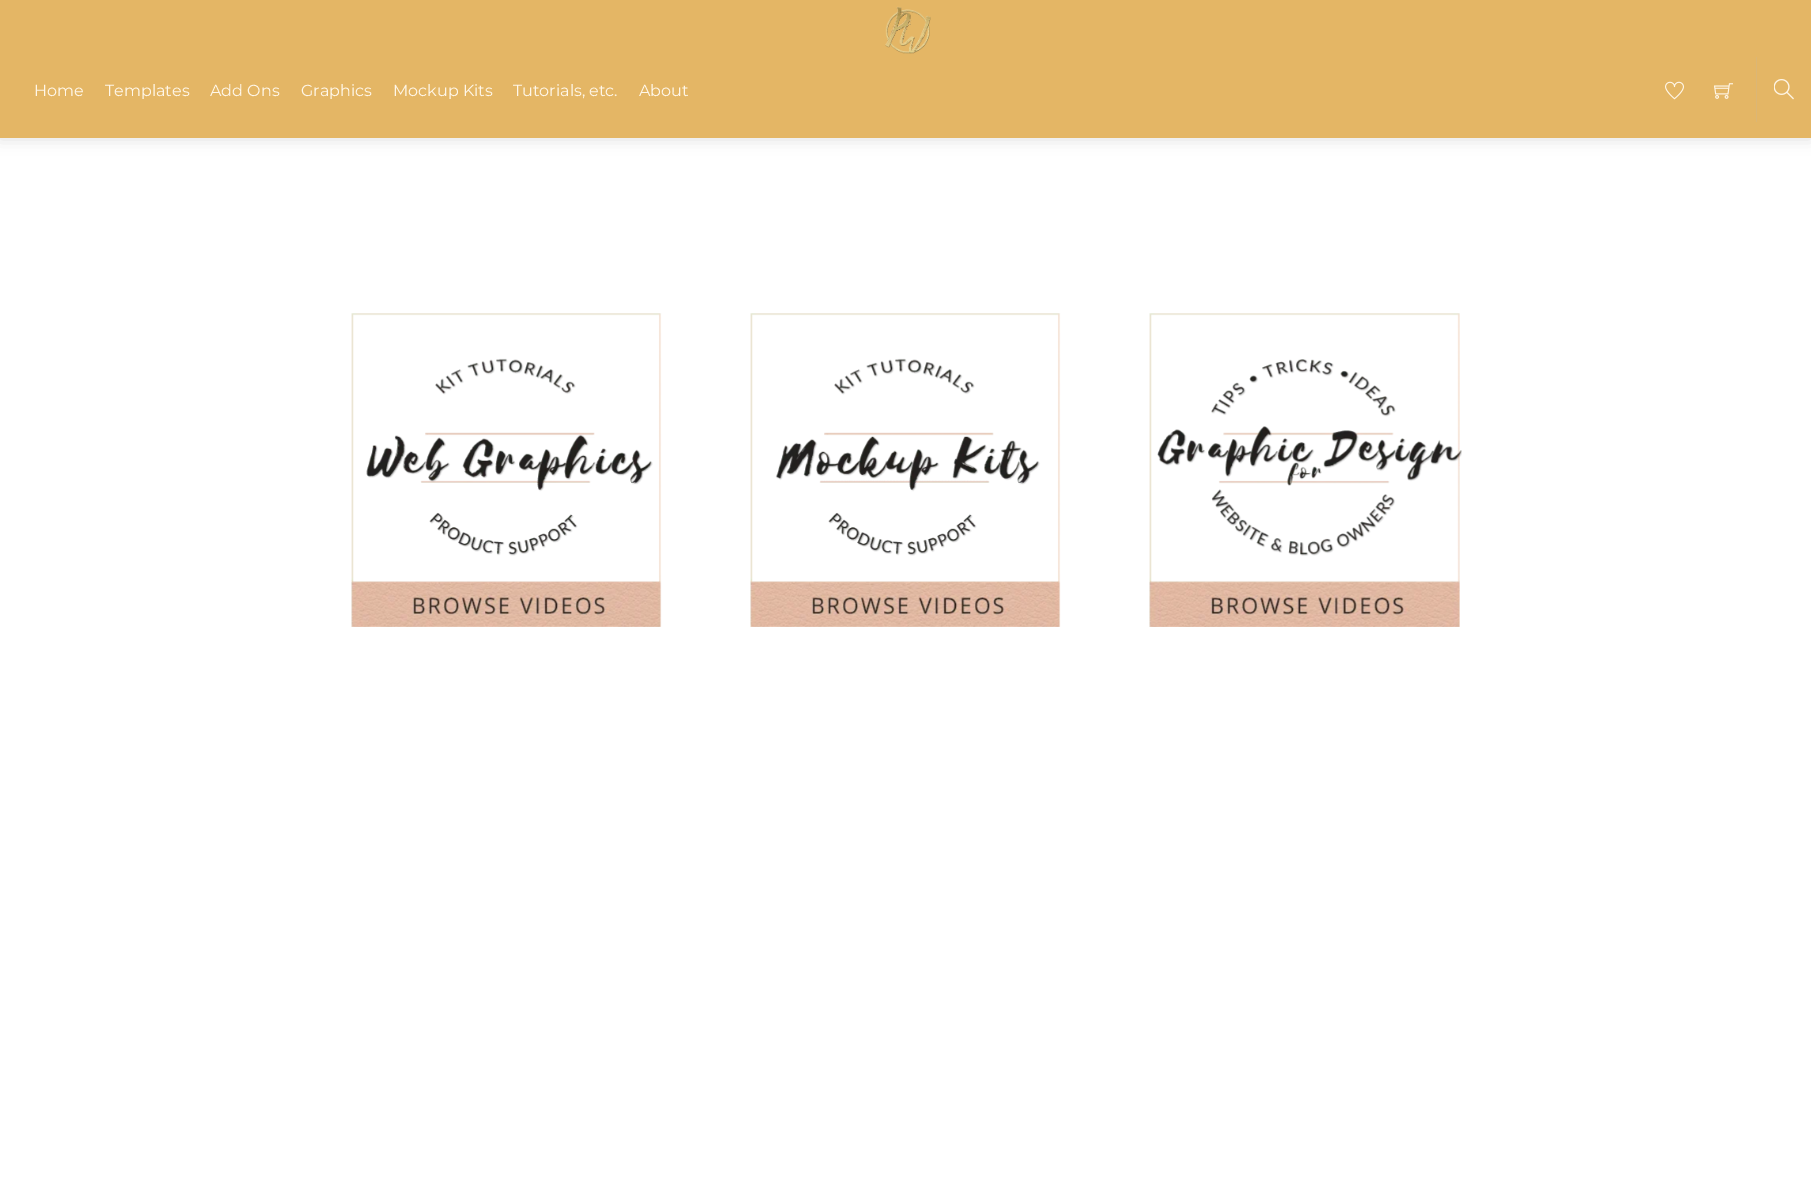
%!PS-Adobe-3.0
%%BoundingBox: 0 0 1811 1202
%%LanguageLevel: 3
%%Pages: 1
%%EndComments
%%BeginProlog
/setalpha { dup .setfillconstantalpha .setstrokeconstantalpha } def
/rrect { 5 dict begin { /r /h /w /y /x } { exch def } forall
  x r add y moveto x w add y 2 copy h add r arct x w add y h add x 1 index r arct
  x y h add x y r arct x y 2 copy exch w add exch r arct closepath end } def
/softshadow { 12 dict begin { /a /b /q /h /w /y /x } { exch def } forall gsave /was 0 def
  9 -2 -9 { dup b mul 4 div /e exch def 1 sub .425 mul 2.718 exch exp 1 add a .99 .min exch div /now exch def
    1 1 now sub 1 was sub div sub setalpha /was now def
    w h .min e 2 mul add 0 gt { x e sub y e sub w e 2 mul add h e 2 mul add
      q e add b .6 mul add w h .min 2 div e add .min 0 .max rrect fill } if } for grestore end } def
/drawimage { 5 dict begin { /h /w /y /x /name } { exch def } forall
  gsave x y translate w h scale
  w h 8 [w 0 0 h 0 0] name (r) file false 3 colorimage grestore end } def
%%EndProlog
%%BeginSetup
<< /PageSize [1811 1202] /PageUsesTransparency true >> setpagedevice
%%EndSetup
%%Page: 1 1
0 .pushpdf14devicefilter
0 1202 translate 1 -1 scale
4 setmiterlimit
1 setgray
0 0 1811 1202 rectfill
0 setgray
0 1 1811 138 0 7.5 0.12 softshadow
0.894 0.714 0.396 setrgbcolor
0 0 1811 138 rectfill
(images/1.raw) 885 6 46 48 drawimage
(images/2.raw) 1665 81 19 19 drawimage
(images/3.raw) 1714 83 19 16 drawimage
0.859 0.714 0.459 setrgbcolor
1756 57 1 65 rectfill
(images/4.raw) 1774 79 20 21 drawimage
(images/5.raw) 351 313 311 314 drawimage
(images/6.raw) 750 313 311 314 drawimage
(images/7.raw) 1149 313 313 314 drawimage
/Montserrat-Regular [16 0 0 -16 0 0] selectfont
1 0.969 0.914 setrgbcolor
34 96 moveto (Home) show
105 96 moveto (Templates) show
210 96 moveto (Add Ons) show
301 96 moveto (Graphics) show
393 96 moveto (Mockup Kits) show
513 96 moveto (Tutorials, etc.) show
639 96 moveto (About) show
.poppdf14devicefilter showpage
%%EOF
